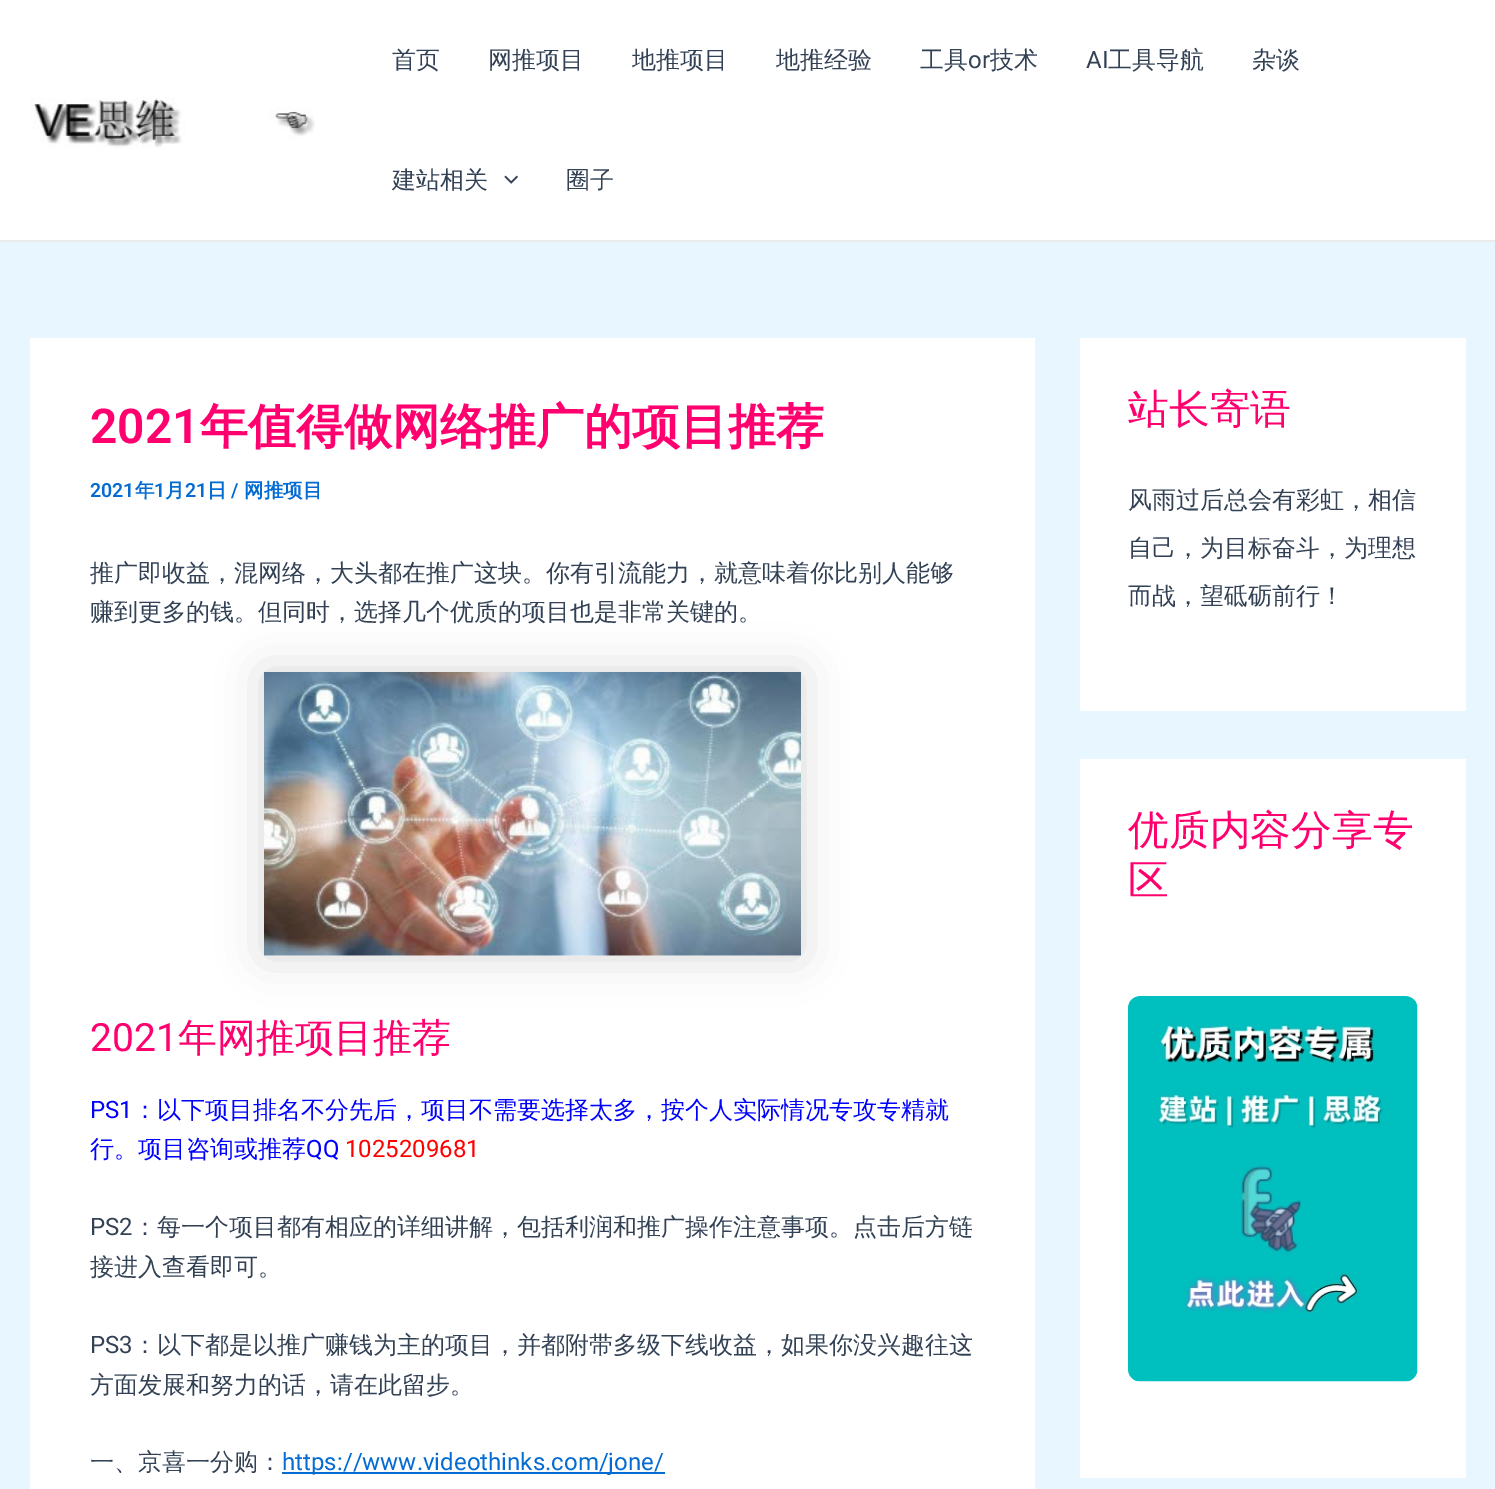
%!PS-Adobe-3.0
%%BoundingBox: 0 0 1495 1489
%%LanguageLevel: 3
%%Pages: 1
%%EndComments
%%BeginProlog
/setalpha { dup .setfillconstantalpha .setstrokeconstantalpha } def
/rrect { 5 dict begin { /r /h /w /y /x } { exch def } forall
  x r add y moveto x w add y 2 copy h add r arct x w add y h add x 1 index r arct
  x y h add x y r arct x y 2 copy exch w add exch r arct closepath end } def
/softshadow { 12 dict begin { /a /b /q /h /w /y /x } { exch def } forall gsave /was 0 def
  9 -2 -9 { dup b mul 4 div /e exch def 1 sub .425 mul 2.718 exch exp 1 add a .99 .min exch div /now exch def
    1 1 now sub 1 was sub div sub setalpha /was now def
    w h .min e 2 mul add 0 gt { x e sub y e sub w e 2 mul add h e 2 mul add
      q e add b .6 mul add w h .min 2 div e add .min 0 .max rrect fill } if } for grestore end } def
/drawimage { 5 dict begin { /h /w /y /x /name } { exch def } forall
  gsave x y translate w h scale
  w h 8 [w 0 0 h 0 0] name (r) file false 3 colorimage grestore end } def
%%EndProlog
%%BeginSetup
<< /PageSize [1495 1489] /PageUsesTransparency true >> setpagedevice
%%EndSetup
%%Page: 1 1
0 .pushpdf14devicefilter
0 1489 translate 1 -1 scale
4 setmiterlimit
0.906 0.965 1 setrgbcolor
0 0 1495 1489 rectfill
1 setgray
0 0 1495 240 rectfill
0.918 setgray
0 240 1495 2 rectfill
(images/1.raw) 30 98 285 51 drawimage
(images/2.raw) 504 175 14 9 drawimage
1 setgray
30 338 1005 1151 rectfill
0 setgray
264 672 537 284 0 22.5 0.15 softshadow
(images/3.raw) 264 672 537 284 drawimage
0.016 0.42 0.824 setrgbcolor
282 1472 383 2 rectfill
1 setgray
1080 338 386 373 rectfill
1080 759 386 719 rectfill
(images/4.raw) 1128 996 290 386 drawimage
/WenQuanYiZenHei-Medium [24 0 0 -24 0 0] selectfont
0.2 0.255 0.333 setrgbcolor
392 68 moveto (首页) show
488 68 moveto (网推项目) show
632 68 moveto (地推项目) show
776 68 moveto (地推经验) show
920 68 moveto (工具) show
/Roboto-Regular [24 0 0 -24 0 0] selectfont
968 68 moveto (or) show
/WenQuanYiZenHei-Medium [24 0 0 -24 0 0] selectfont
990 68 moveto (技术) show
/Roboto-Regular [24 0 0 -24 0 0] selectfont
1086 68 moveto (AI) show
/WenQuanYiZenHei-Medium [24 0 0 -24 0 0] selectfont
1108 68 moveto (工具导航) show
1252 68 moveto (杂谈) show
392 188 moveto (建站相关) show
566 188 moveto (圈子) show
/Roboto-SemiBold [48 0 0 -48 0 0] selectfont
1 0 0.431 setrgbcolor
90 443 moveto (2021) show
/WenQuanYiZenHei-Bold [48 0 0 -48 0 0] selectfont
200 443 moveto (年值得做网络推广的项目推荐) show
/Roboto-SemiBold [19.5 0 0 -19.5 0 0] selectfont
0.016 0.42 0.824 setrgbcolor
90 497 moveto (2021) show
/WenQuanYiZenHei-Bold [19.5 0 0 -19.5 0 0] selectfont
135 497 moveto (年) show
/Roboto-SemiBold [19.5 0 0 -19.5 0 0] selectfont
154 497 moveto (1) show
/WenQuanYiZenHei-Bold [19.5 0 0 -19.5 0 0] selectfont
165 497 moveto (月) show
/Roboto-SemiBold [19.5 0 0 -19.5 0 0] selectfont
185 497 moveto (21) show
/WenQuanYiZenHei-Bold [19.5 0 0 -19.5 0 0] selectfont
207 497 moveto (日) show
/Roboto-SemiBold [19.5 0 0 -19.5 0 0] selectfont
231 497 moveto (/) show
/WenQuanYiZenHei-Bold [19.5 0 0 -19.5 0 0] selectfont
244 497 moveto (网推项目) show
/WenQuanYiZenHei-Medium [24 0 0 -24 0 0] selectfont
0.2 0.255 0.333 setrgbcolor
90 581 moveto (推广即收益，混网络，大头都在推广这块。你有引流能力，就意味着你比别人能够) show
90 620 moveto (赚到更多的钱。但同时，选择几个优质的项目也是非常关键的。) show
/Roboto-Regular [39 0 0 -39 0 0] selectfont
1 0 0.431 setrgbcolor
90 1051 moveto (2021) show
/WenQuanYiZenHei-Medium [39 0 0 -39 0 0] selectfont
178 1051 moveto (年网推项目推荐) show
/Roboto-Regular [24 0 0 -24 0 0] selectfont
0 0 1 setrgbcolor
90 1118 moveto (PS1) show
/WenQuanYiZenHei-Medium [24 0 0 -24 0 0] selectfont
133 1118 moveto (：以下项目排名不分先后，项目不需要选择太多，按个人实际情况专攻专精就) show
90 1157 moveto (行。项目咨询或推荐) show
/Roboto-Regular [24 0 0 -24 0 0] selectfont
306 1157 moveto (QQ) show
1 0 0 setrgbcolor
345 1157 moveto (1025209681) show
0.2 0.255 0.333 setrgbcolor
90 1235 moveto (PS2) show
/WenQuanYiZenHei-Medium [24 0 0 -24 0 0] selectfont
133 1235 moveto (：每一个项目都有相应的详细讲解，包括利润和推广操作注意事项。点击后方链) show
90 1275 moveto (接进入查看即可。) show
/Roboto-Regular [24 0 0 -24 0 0] selectfont
90 1353 moveto (PS3) show
/WenQuanYiZenHei-Medium [24 0 0 -24 0 0] selectfont
133 1353 moveto (：以下都是以推广赚钱为主的项目，并都附带多级下线收益，如果你没兴趣往这) show
90 1393 moveto (方面发展和努力的话，请在此留步。) show
90 1470 moveto (一、京喜一分购：) show
/Roboto-Regular [24 0 0 -24 0 0] selectfont
0.016 0.42 0.824 setrgbcolor
282 1470 moveto (https://www.videothinks.com/jone/) show
/WenQuanYiZenHei-Medium [40.75 0 0 -40.75 0 0] selectfont
1 0 0.431 setrgbcolor
1128 423 moveto (站长寄语) show
/WenQuanYiZenHei-Medium [24 0 0 -24 0 0] selectfont
0.2 0.255 0.333 setrgbcolor
1128 508 moveto (风雨过后总会有彩虹，相信) show
1128 556 moveto (自己，为目标奋斗，为理想) show
1128 604 moveto (而战，望砥砺前行！) show
/WenQuanYiZenHei-Medium [40.75 0 0 -40.75 0 0] selectfont
1 0 0.431 setrgbcolor
1128 844 moveto (优质内容分享专) show
1128 894 moveto (区) show
.poppdf14devicefilter showpage
%%EOF
